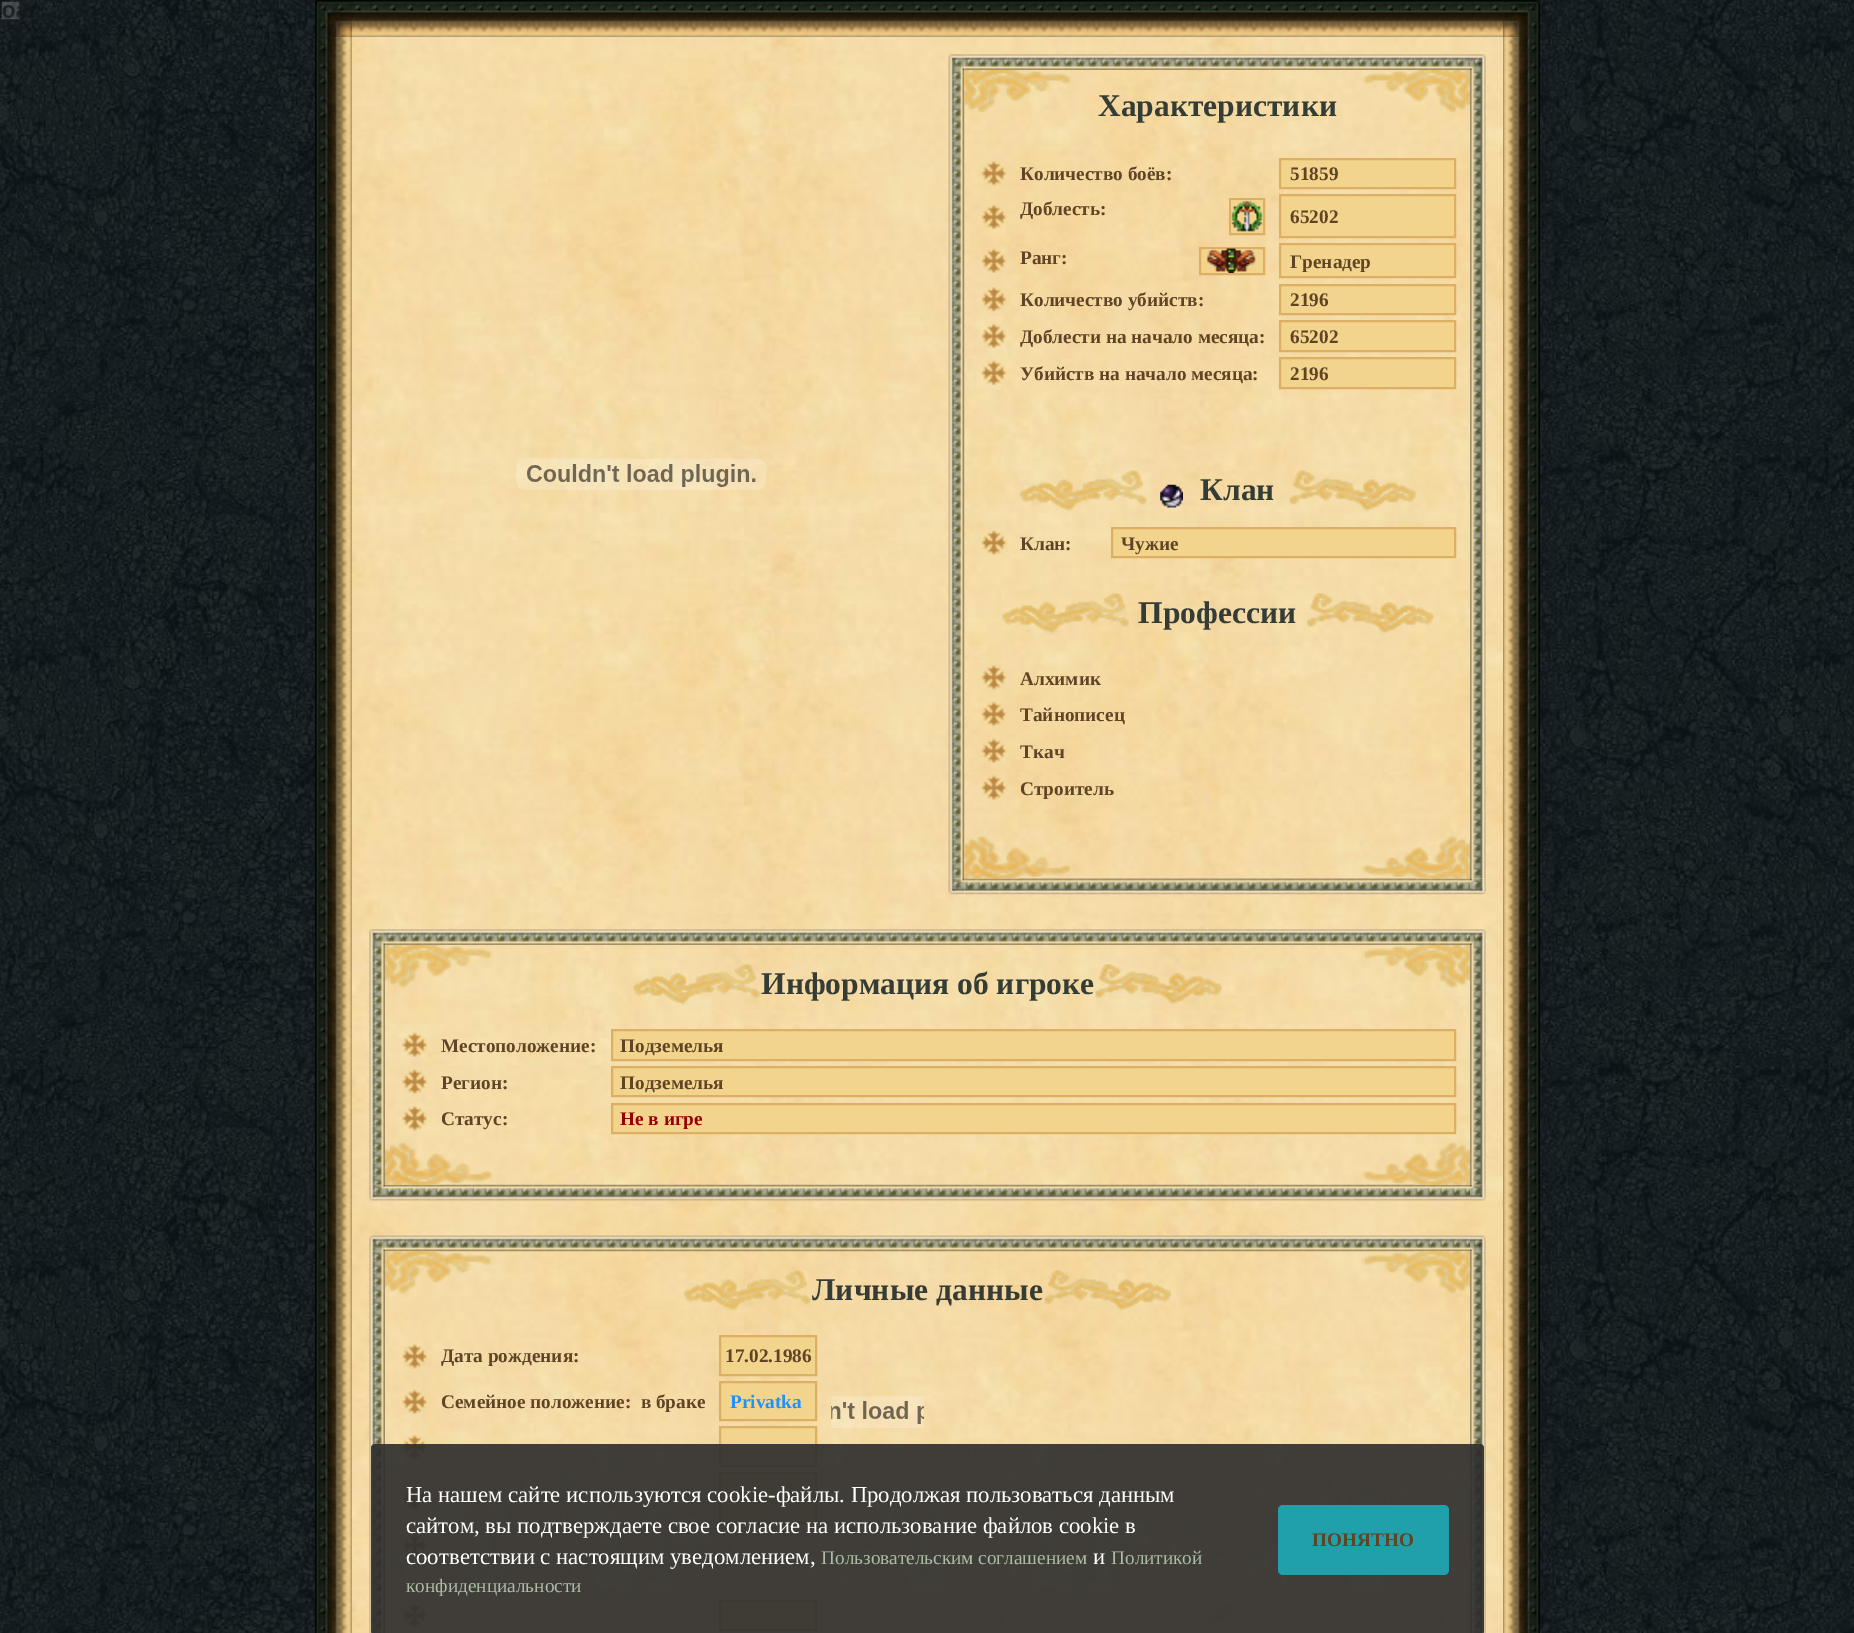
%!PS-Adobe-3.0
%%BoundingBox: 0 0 1854 1633
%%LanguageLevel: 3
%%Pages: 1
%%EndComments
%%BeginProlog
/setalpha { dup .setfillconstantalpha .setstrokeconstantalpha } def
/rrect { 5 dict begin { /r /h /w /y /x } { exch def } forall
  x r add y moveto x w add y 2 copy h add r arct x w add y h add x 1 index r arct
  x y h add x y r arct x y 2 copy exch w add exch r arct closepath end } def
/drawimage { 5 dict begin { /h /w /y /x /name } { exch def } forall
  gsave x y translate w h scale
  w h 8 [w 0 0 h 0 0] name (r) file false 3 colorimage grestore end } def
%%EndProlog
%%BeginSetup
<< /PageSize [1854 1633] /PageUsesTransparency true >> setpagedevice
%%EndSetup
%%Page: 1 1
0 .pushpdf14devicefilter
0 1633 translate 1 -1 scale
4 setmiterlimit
1 setgray
0 0 1854 1633 rectfill
(images/1.raw) 0 0 1854 1633 drawimage
(images/2.raw) 1 1 19 19 drawimage
(images/3.raw) 315 0 37 37 drawimage
(images/4.raw) 351 0 1153 37 drawimage
(images/5.raw) 1503 0 37 37 drawimage
(images/6.raw) 315 36 37 1597 drawimage
(images/7.raw) 351 36 1153 1597 drawimage
(images/8.raw) 516 458 251 32 drawimage
(images/9.raw) 948 54 17 16 drawimage
(images/10.raw) 964 54 506 16 drawimage
(images/11.raw) 1470 54 16 16 drawimage
(images/12.raw) 948 70 17 809 drawimage
(images/13.raw) 964 70 109 43 drawimage
(images/14.raw) 1361 70 109 43 drawimage
(images/15.raw) 981 161 26 25 drawimage
0.949 0.831 0.549 setrgbcolor
newpath 1280 159 moveto 1455 159 lineto 1455 188 lineto 1280 188 lineto closepath gsave fill grestore
0.863 0.686 0.396 setrgbcolor
2 setlinewidth
stroke
(images/16.raw) 981 204 26 26 drawimage
0.949 0.831 0.549 setrgbcolor
newpath 1230 199 moveto 1264 199 lineto 1264 234 lineto 1230 234 lineto closepath gsave fill grestore
0.863 0.686 0.396 setrgbcolor
stroke
(images/17.raw) 1231 200 32 32 drawimage
0.949 0.831 0.549 setrgbcolor
newpath 1280 195 moveto 1455 195 lineto 1455 237 lineto 1280 237 lineto closepath gsave fill grestore
0.863 0.686 0.396 setrgbcolor
stroke
(images/18.raw) 981 248 26 25 drawimage
0.949 0.831 0.549 setrgbcolor
newpath 1200 248 moveto 1264 248 lineto 1264 274 lineto 1200 274 lineto closepath gsave fill grestore
0.863 0.686 0.396 setrgbcolor
stroke
(images/19.raw) 1206 248 51 25 drawimage
0.949 0.831 0.549 setrgbcolor
newpath 1280 244 moveto 1455 244 lineto 1455 277 lineto 1280 277 lineto closepath gsave fill grestore
0.863 0.686 0.396 setrgbcolor
stroke
(images/20.raw) 981 287 26 25 drawimage
0.949 0.831 0.549 setrgbcolor
newpath 1280 285 moveto 1455 285 lineto 1455 314 lineto 1280 314 lineto closepath gsave fill grestore
0.863 0.686 0.396 setrgbcolor
stroke
(images/21.raw) 981 323 26 26 drawimage
0.949 0.831 0.549 setrgbcolor
newpath 1280 321 moveto 1455 321 lineto 1455 351 lineto 1280 351 lineto closepath gsave fill grestore
0.863 0.686 0.396 setrgbcolor
stroke
(images/22.raw) 981 360 26 25 drawimage
0.949 0.831 0.549 setrgbcolor
newpath 1280 358 moveto 1455 358 lineto 1455 388 lineto 1280 388 lineto closepath gsave fill grestore
0.863 0.686 0.396 setrgbcolor
stroke
(images/23.raw) 1020 470 127 42 drawimage
(images/24.raw) 1160 484 23 24 drawimage
(images/25.raw) 1289 470 127 42 drawimage
(images/26.raw) 981 530 26 25 drawimage
0.949 0.831 0.549 setrgbcolor
newpath 1112 528 moveto 1455 528 lineto 1455 557 lineto 1112 557 lineto closepath gsave fill grestore
0.863 0.686 0.396 setrgbcolor
stroke
(images/27.raw) 1002 593 127 41 drawimage
(images/28.raw) 1307 593 127 41 drawimage
(images/29.raw) 981 665 26 25 drawimage
(images/30.raw) 981 701 26 26 drawimage
(images/31.raw) 981 738 26 25 drawimage
(images/32.raw) 981 775 26 25 drawimage
(images/36.raw) 948 878 17 17 drawimage
(images/37.raw) 964 878 506 17 drawimage
(images/33.raw) 964 836 109 43 drawimage
(images/34.raw) 1361 836 109 43 drawimage
(images/35.raw) 1470 70 16 809 drawimage
(images/38.raw) 1470 878 16 17 drawimage
(images/39.raw) 369 929 16 16 drawimage
(images/40.raw) 385 929 1085 16 drawimage
(images/41.raw) 1470 929 16 16 drawimage
(images/42.raw) 369 945 16 240 drawimage
(images/43.raw) 385 945 109 43 drawimage
(images/44.raw) 633 964 127 41 drawimage
(images/45.raw) 1095 964 127 41 drawimage
(images/46.raw) 1361 945 109 43 drawimage
(images/47.raw) 402 1032 25 25 drawimage
0.949 0.831 0.549 setrgbcolor
newpath 612 1030 moveto 1455 1030 lineto 1455 1060 lineto 612 1060 lineto closepath gsave fill grestore
0.863 0.686 0.396 setrgbcolor
stroke
(images/48.raw) 402 1069 25 25 drawimage
0.949 0.831 0.549 setrgbcolor
newpath 612 1067 moveto 1455 1067 lineto 1455 1096 lineto 612 1096 lineto closepath gsave fill grestore
0.863 0.686 0.396 setrgbcolor
stroke
(images/49.raw) 402 1106 25 25 drawimage
0.949 0.831 0.549 setrgbcolor
newpath 612 1104 moveto 1455 1104 lineto 1455 1133 lineto 612 1133 lineto closepath gsave fill grestore
0.863 0.686 0.396 setrgbcolor
stroke
(images/54.raw) 385 1184 1085 17 drawimage
(images/50.raw) 385 1142 109 43 drawimage
(images/51.raw) 1361 1142 109 43 drawimage
(images/52.raw) 1470 945 16 240 drawimage
(images/53.raw) 369 1184 16 17 drawimage
(images/55.raw) 1470 1184 16 17 drawimage
(images/56.raw) 369 1235 16 17 drawimage
(images/57.raw) 385 1235 1085 17 drawimage
(images/58.raw) 1470 1235 16 17 drawimage
(images/59.raw) 369 1251 16 382 drawimage
(images/60.raw) 385 1251 109 43 drawimage
(images/61.raw) 684 1270 127 41 drawimage
(images/62.raw) 1044 1270 127 41 drawimage
(images/63.raw) 1361 1251 109 43 drawimage
(images/64.raw) 402 1344 25 25 drawimage
0.949 0.831 0.549 setrgbcolor
newpath 720 1336 moveto 816 1336 lineto 816 1375 lineto 720 1375 lineto closepath gsave fill grestore
0.863 0.686 0.396 setrgbcolor
stroke
(images/65.raw) 831 1396 93 32 drawimage
(images/66.raw) 402 1389 25 25 drawimage
0.949 0.831 0.549 setrgbcolor
newpath 720 1382 moveto 816 1382 lineto 816 1420 lineto 720 1420 lineto closepath gsave fill grestore
0.863 0.686 0.396 setrgbcolor
stroke
(images/67.raw) 402 1435 25 25 drawimage
0.949 0.831 0.549 setrgbcolor
newpath 720 1427 moveto 816 1427 lineto 816 1466 lineto 720 1466 lineto closepath gsave fill grestore
0.863 0.686 0.396 setrgbcolor
stroke
(images/68.raw) 402 1485 25 26 drawimage
0.949 0.831 0.549 setrgbcolor
newpath 720 1473 moveto 816 1473 lineto 816 1523 lineto 720 1523 lineto closepath gsave fill grestore
0.863 0.686 0.396 setrgbcolor
stroke
(images/69.raw) 402 1533 25 25 drawimage
(images/70.raw) 402 1603 25 25 drawimage
0.949 0.831 0.549 setrgbcolor
newpath 720 1601 moveto 816 1601 lineto 816 1630 lineto 720 1630 lineto closepath gsave fill grestore
0.863 0.686 0.396 setrgbcolor
stroke
(images/71.raw) 1470 1251 16 382 drawimage
(images/72.raw) 1503 36 37 1597 drawimage
0.9 setalpha
0.173 setgray
371 1444 1113 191 4 rrect fill
1 setalpha
0.122 0.627 0.671 setrgbcolor
1278 1505 171 70 5 rrect fill
/LiberationSerif-Bold [31.5 0 0 -31.5 0 0] selectfont
0.204 0.235 0.208 setrgbcolor
1098 116 moveto (Характеристики) show
/LiberationSerif-Bold [19.25 0 0 -19.25 0 0] selectfont
0.373 0.267 0.145 setrgbcolor
1020 180 moveto (Количество боёв:) show
1290 180 moveto (51859) show
1020 215 moveto (Доблесть:) show
1290 223 moveto (65202) show
1020 264 moveto (Ранг:) show
1290 268 moveto (Гренадер) show
1020 306 moveto (Количество убийств:) show
1290 306 moveto (2196) show
1020 343 moveto (Доблести на начало месяца:) show
1290 343 moveto (65202) show
1020 380 moveto (Убийств на начало месяца:) show
1290 380 moveto (2196) show
/LiberationSerif-Bold [31.5 0 0 -31.5 0 0] selectfont
0.204 0.235 0.208 setrgbcolor
1200 500 moveto (Клан) show
/LiberationSerif-Bold [19.25 0 0 -19.25 0 0] selectfont
0.373 0.267 0.145 setrgbcolor
1020 550 moveto (Клан:) show
1121 550 moveto (Чужие) show
/LiberationSerif-Bold [31.5 0 0 -31.5 0 0] selectfont
0.204 0.235 0.208 setrgbcolor
1138 623 moveto (Профессии) show
/LiberationSerif-Bold [19.25 0 0 -19.25 0 0] selectfont
0.373 0.267 0.145 setrgbcolor
1020 685 moveto (Алхимик) show
1020 721 moveto (Тайнописец) show
1020 758 moveto (Ткач) show
1020 795 moveto (Строитель) show
/LiberationSerif-Bold [31.5 0 0 -31.5 0 0] selectfont
0.204 0.235 0.208 setrgbcolor
761 994 moveto (Информация об игроке) show
/LiberationSerif-Bold [19.25 0 0 -19.25 0 0] selectfont
0.373 0.267 0.145 setrgbcolor
441 1052 moveto (Местоположение:) show
620 1052 moveto (Подземелья) show
441 1089 moveto (Регион:) show
620 1089 moveto (Подземелья) show
441 1125 moveto (Статус:) show
0.58 0 0 setrgbcolor
620 1125 moveto (Не в игре) show
/LiberationSerif-Bold [31.5 0 0 -31.5 0 0] selectfont
0.204 0.235 0.208 setrgbcolor
812 1300 moveto (Личные данные) show
/LiberationSerif-Bold [19.25 0 0 -19.25 0 0] selectfont
0.373 0.267 0.145 setrgbcolor
441 1362 moveto (Дата рождения:) show
725 1362 moveto (17.02.1986) show
441 1408 moveto (Семейное положение:  в браке) show
0.118 0.565 1 setrgbcolor
730 1408 moveto (Privatka) show
/LiberationSerif-Regular [22.75 0 0 -22.75 0 0] selectfont
1 setgray
406 1502 moveto (На нашем сайте используются cookie-файлы. Продолжая пользоваться данным) show
406 1533 moveto (сайтом, вы подтверждаете свое согласие на использование файлов cookie в) show
406 1564 moveto (соответствии с настоящим уведомлением,) show
/LiberationSerif-Regular [19.25 0 0 -19.25 0 0] selectfont
0.671 0.741 0.647 setrgbcolor
821 1564 moveto (Пользовательским соглашением) show
/LiberationSerif-Regular [22.75 0 0 -22.75 0 0] selectfont
1 setgray
1093 1564 moveto (и) show
/LiberationSerif-Regular [19.25 0 0 -19.25 0 0] selectfont
0.671 0.741 0.647 setrgbcolor
1111 1564 moveto (Политикой) show
406 1592 moveto (конфиденциальности) show
/LiberationSerif-Bold [19.25 0 0 -19.25 0 0] selectfont
0.373 0.267 0.145 setrgbcolor
1312 1546 moveto (ПОНЯТНО) show
.poppdf14devicefilter showpage
%%EOF
